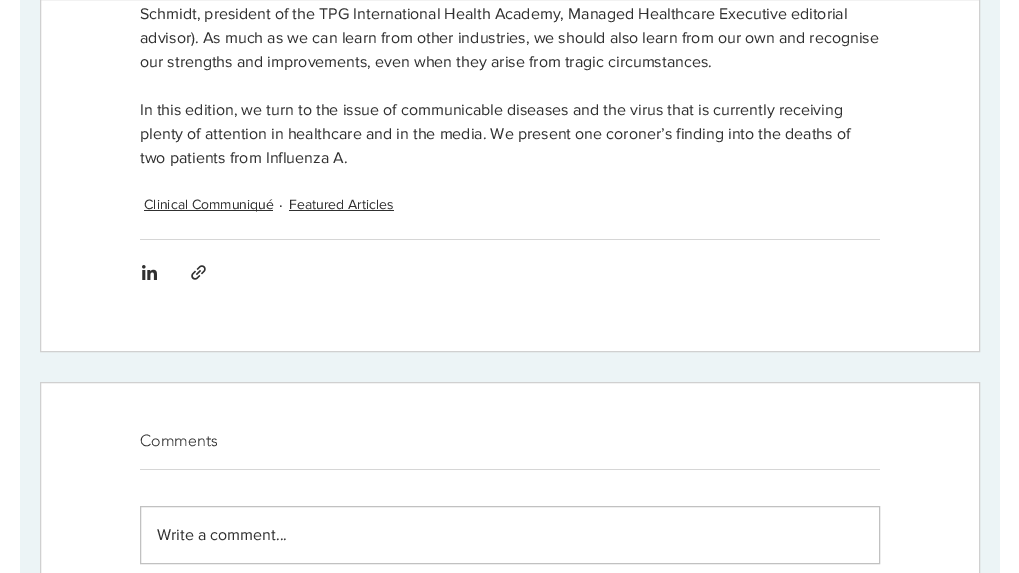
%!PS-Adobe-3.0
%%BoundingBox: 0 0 1019 573
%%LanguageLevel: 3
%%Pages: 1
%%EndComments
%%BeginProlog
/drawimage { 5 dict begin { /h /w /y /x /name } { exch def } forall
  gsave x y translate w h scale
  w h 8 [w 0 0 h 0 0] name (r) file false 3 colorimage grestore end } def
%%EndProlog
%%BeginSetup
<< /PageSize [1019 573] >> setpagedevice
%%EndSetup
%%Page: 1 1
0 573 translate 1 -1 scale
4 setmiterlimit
1 setgray
0 0 1019 573 rectfill
0.925 0.957 0.965 setrgbcolor
20 0 980 573 rectfill
1 setgray
newpath 40.5 -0.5 moveto 979.5 -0.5 lineto 979.5 351.5 lineto 40.5 351.5 lineto closepath gsave fill grestore
0.816 setgray
stroke
0.188 setgray
144 210 129 1 rectfill
289 210 105 1 rectfill
0.839 setgray
140 239 740 1 rectfill
(images/1.raw) 142 265 15 15 drawimage
(images/2.raw) 191 265 15 15 drawimage
1 setgray
newpath 40.5 382.5 moveto 979.5 382.5 lineto 979.5 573.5 lineto 40.5 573.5 lineto closepath gsave fill grestore
0.816 setgray
stroke
0.839 setgray
140 469 740 1 rectfill
0.757 setgray
140.5 506.5 739 57 rectstroke
/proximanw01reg-Regular [16 0 0 -16 0 0] selectfont
0.188 setgray
140 19 moveto (Schmidt, president of the TPG International Health Academy, Managed Healthcare Executive editorial) show
140 43 moveto (advisor\). As much as we can learn from other industries, we should also learn from our own and recognise) show
140 67 moveto (our strengths and improvements, even when they arise from tragic circumstances.) show
140 115 moveto (In this edition, we turn to the issue of communicable diseases and the virus that is currently receiving) show
140 139 moveto (plenty of attention in healthcare and in the media. We present one coroner’s finding into the deaths of) show
140 163 moveto (two patients from Influenza A.) show
/proximanw01reg-Regular [14 0 0 -14 0 0] selectfont
144 209 moveto (Clinical Communiqué) show
/proximanw01reg-Regular [16 0 0 -16 0 0] selectfont
279 210 moveto (·) show
/proximanw01reg-Regular [14 0 0 -14 0 0] selectfont
289 209 moveto (Featured Articles) show
/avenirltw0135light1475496-Light [16 0 0 -16 0 0] selectfont
140 446 moveto (Comments) show
/proximanw01reg-Regular [16 0 0 -16 0 0] selectfont
157 540 moveto (Write a comment...) show
showpage
%%EOF
